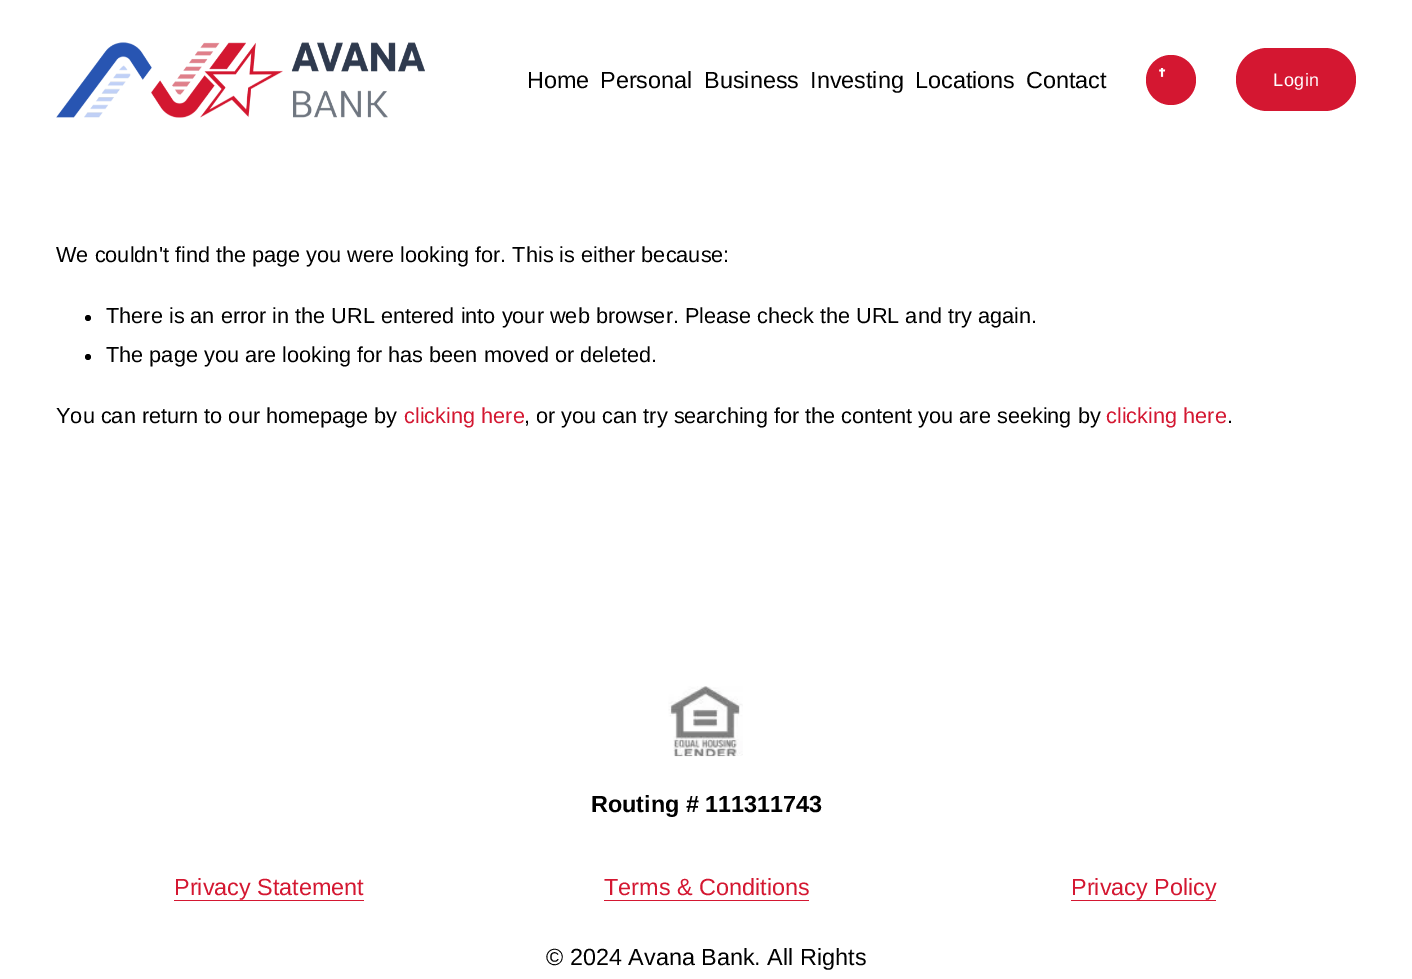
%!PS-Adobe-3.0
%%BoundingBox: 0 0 1412 979
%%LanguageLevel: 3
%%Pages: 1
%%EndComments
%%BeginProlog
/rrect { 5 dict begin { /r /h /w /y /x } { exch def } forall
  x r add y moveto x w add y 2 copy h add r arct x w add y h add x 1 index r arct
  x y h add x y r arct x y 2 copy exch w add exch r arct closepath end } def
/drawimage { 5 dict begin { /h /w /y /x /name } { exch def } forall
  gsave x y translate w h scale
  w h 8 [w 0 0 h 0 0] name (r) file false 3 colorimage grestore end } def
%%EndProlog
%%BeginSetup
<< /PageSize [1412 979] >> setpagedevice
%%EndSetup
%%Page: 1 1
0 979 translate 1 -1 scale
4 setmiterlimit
1 setgray
0 0 1412 979 rectfill
(images/1.raw) 56 42 369 76 drawimage
0.831 0.09 0.192 setrgbcolor
newpath 1171 80 25 0 360 arc closepath fill
(images/2.raw) 1159 68 7 9 drawimage
1236 48 120 63 31.5 rrect fill
0 setgray
newpath 88 318 3 0 360 arc closepath fill
newpath 88 357 3 0 360 arc closepath fill
(images/3.raw) 668 686 75 71 drawimage
0.831 0.09 0.192 setrgbcolor
174 900 190 1 rectfill
604 900 205 1 rectfill
1071 900 145 1 rectfill
/LiberationSans-Regular [23.4 0 0 -23.4 0 0] selectfont
0 setgray
527 88 moveto (Home) show
600 88 moveto (Personal) show
704 88 moveto (Business) show
810 88 moveto (Investing) show
915 88 moveto (Locations) show
1026 88 moveto (Contact) show
/LiberationSans-Regular [18 0 0 -18 0 0] selectfont
1 setgray
1273 86 moveto 0.5 0 (Login) ashow
/LiberationSans-Regular [21.7 0 0 -21.7 0 0] selectfont
0 setgray
56 262 moveto (We couldn't find the page you were looking for. This is either because:) show
106 323 moveto (There is an error in the URL entered into your web browser. Please check the URL and try again.) show
106 362 moveto (The page you are looking for has been moved or deleted.) show
56 423 moveto (You can return to our homepage by) show
0.831 0.09 0.192 setrgbcolor
404 423 moveto (clicking here) show
0 setgray
524 423 moveto (, or you can try searching for the content you are seeking by) show
0.831 0.09 0.192 setrgbcolor
1106 423 moveto (clicking here) show
0 setgray
1227 423 moveto (.) show
/LiberationSans-Bold [23.4 0 0 -23.4 0 0] selectfont
591 812 moveto (Routing # 111311743) show
/LiberationSans-Regular [23.4 0 0 -23.4 0 0] selectfont
0.831 0.09 0.192 setrgbcolor
174 895 moveto (Privacy Statement) show
604 895 moveto (Terms & Conditions) show
1071 895 moveto (Privacy Policy) show
0 setgray
546 965 moveto (© 2024 Avana Bank. All Rights) show
showpage
%%EOF
